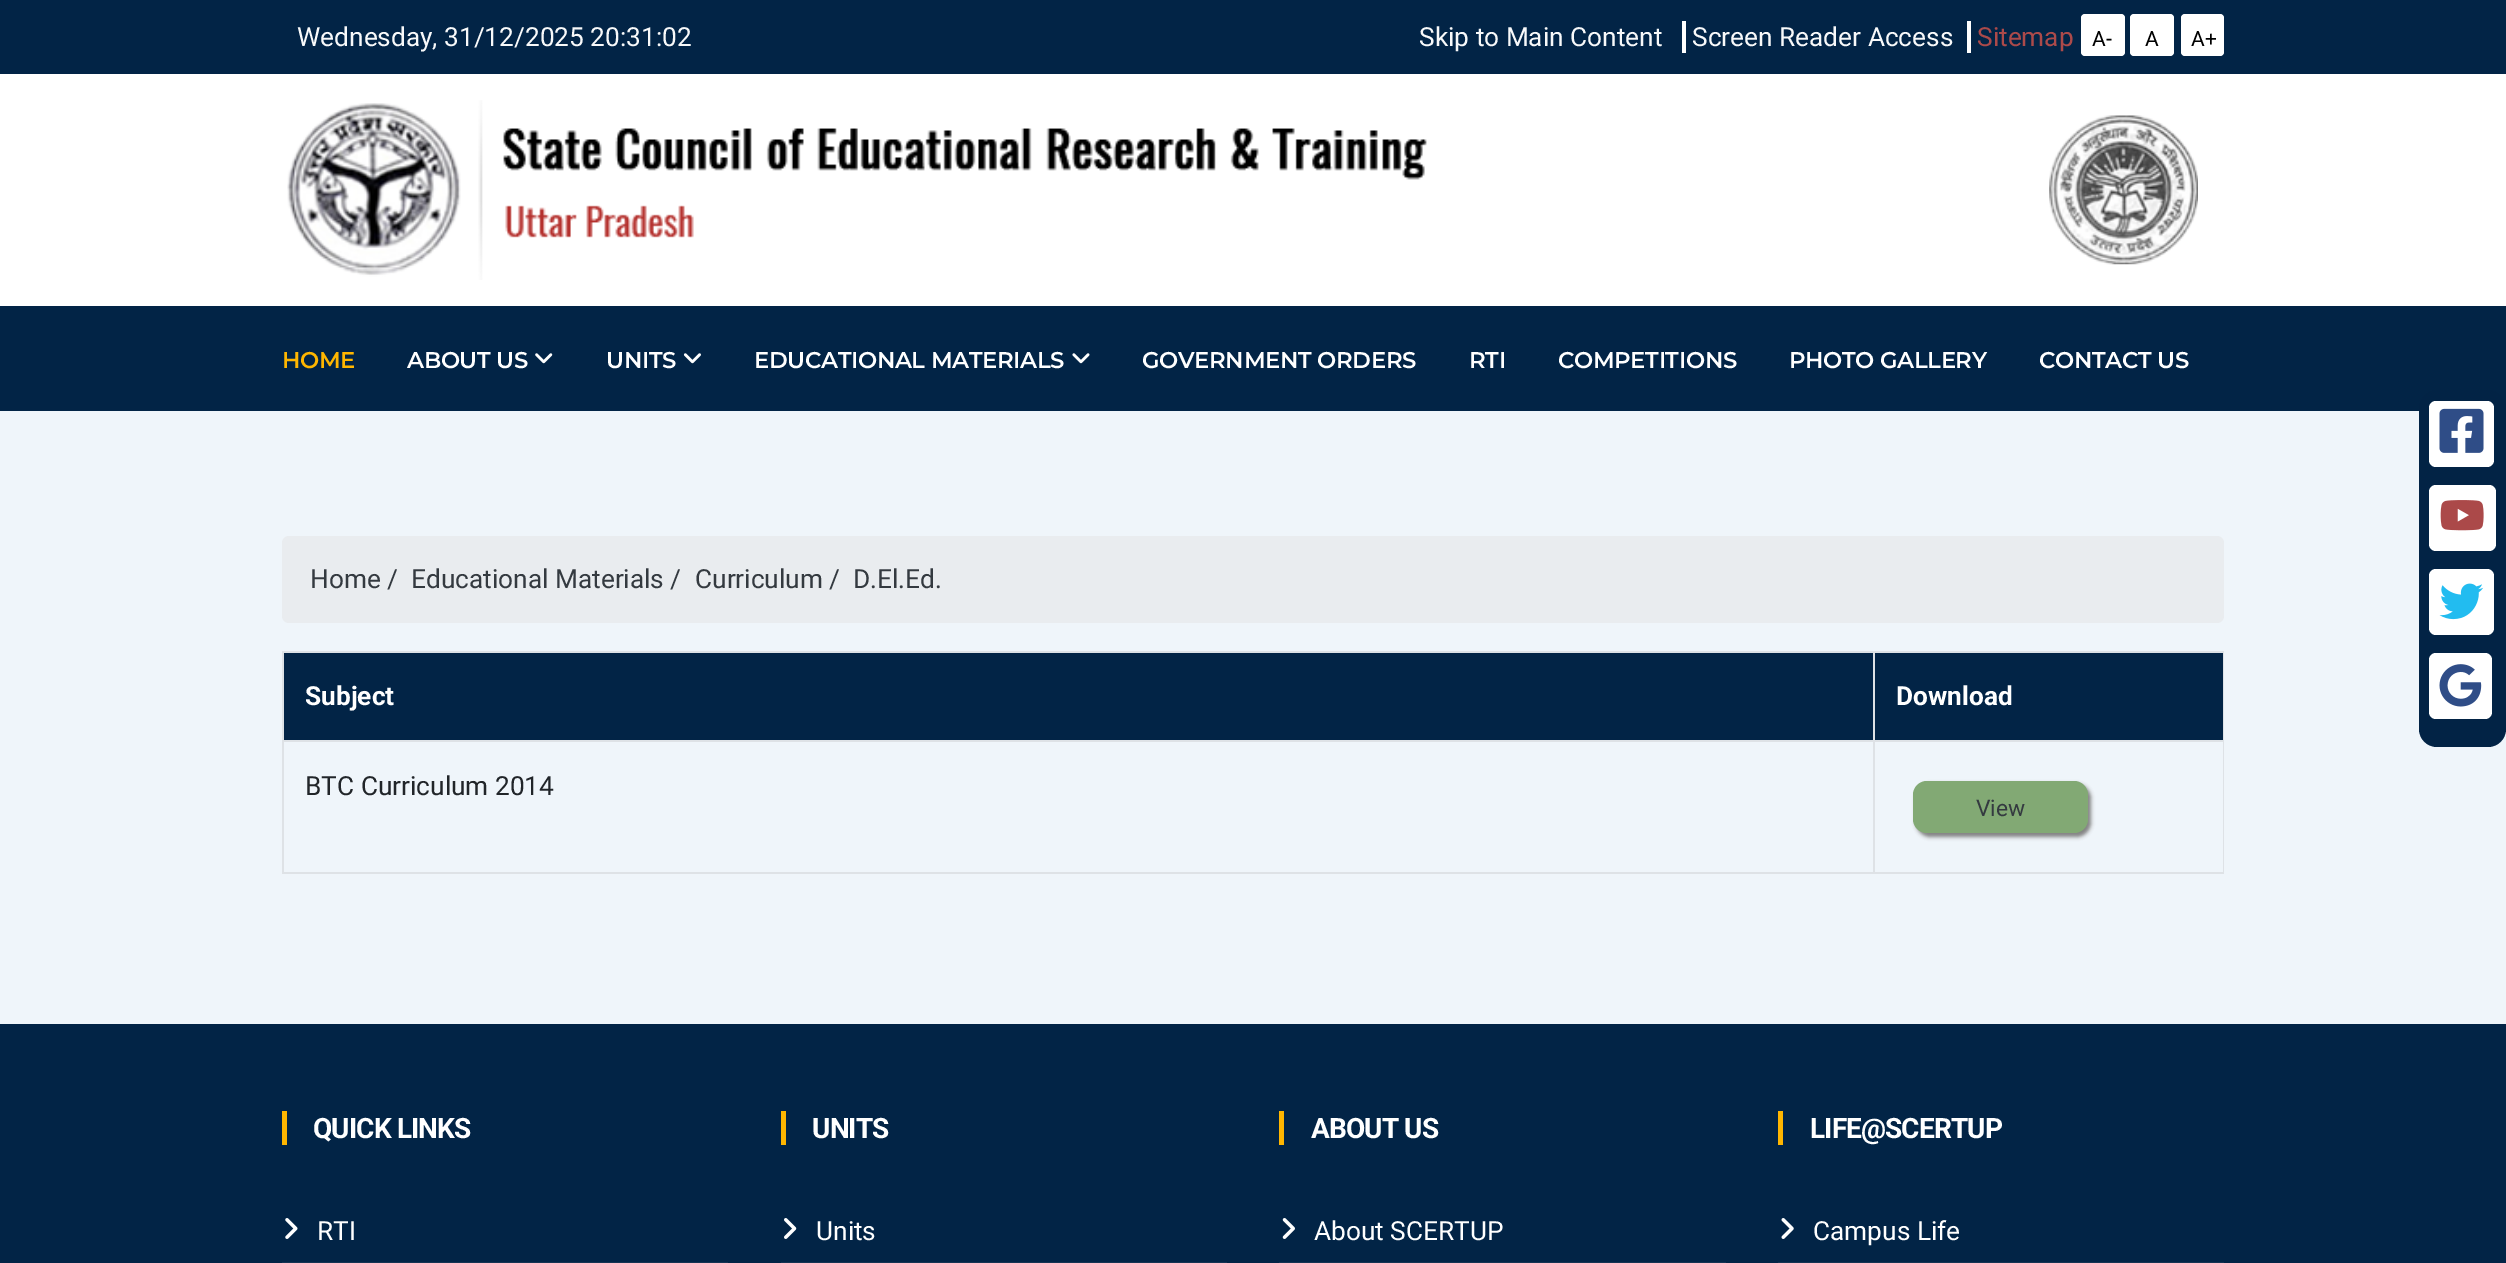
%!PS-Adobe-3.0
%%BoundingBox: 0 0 2506 1263
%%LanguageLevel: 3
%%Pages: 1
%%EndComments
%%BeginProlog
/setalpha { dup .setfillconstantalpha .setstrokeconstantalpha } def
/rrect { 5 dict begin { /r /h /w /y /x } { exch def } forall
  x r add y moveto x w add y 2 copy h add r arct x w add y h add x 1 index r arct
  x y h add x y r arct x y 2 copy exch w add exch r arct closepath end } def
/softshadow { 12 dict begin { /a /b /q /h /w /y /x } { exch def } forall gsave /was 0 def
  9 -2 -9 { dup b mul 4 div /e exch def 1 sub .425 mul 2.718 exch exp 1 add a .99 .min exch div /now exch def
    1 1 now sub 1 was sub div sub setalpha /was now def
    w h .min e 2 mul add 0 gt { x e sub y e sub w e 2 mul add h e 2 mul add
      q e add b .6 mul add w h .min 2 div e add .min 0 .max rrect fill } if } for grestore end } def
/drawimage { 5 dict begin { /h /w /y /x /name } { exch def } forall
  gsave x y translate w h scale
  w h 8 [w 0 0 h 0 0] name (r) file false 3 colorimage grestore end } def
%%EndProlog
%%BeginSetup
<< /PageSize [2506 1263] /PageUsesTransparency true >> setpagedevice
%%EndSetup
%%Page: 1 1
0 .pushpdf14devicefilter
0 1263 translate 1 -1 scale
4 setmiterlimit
0.937 0.961 0.98 setrgbcolor
0 0 2506 1263 rectfill
0.008 0.141 0.275 setrgbcolor
0 0 2506 74 rectfill
1 setgray
1682 21 4 32 rectfill
1967 21 4 32 rectfill
2081 14 44 42 4 rrect fill
2130 14 44 42 4 rrect fill
2181 14 43 42 4 rrect fill
0 74 2506 232 rectfill
(images/1.raw) 287 100 1140 180 drawimage
(images/2.raw) 2049 115 149 150 drawimage
0.008 0.141 0.275 setrgbcolor
0 306 2506 105 rectfill
(images/3.raw) 535 353 18 11 drawimage
(images/4.raw) 683 353 18 11 drawimage
(images/5.raw) 1072 353 18 11 drawimage
0.914 0.925 0.937 setrgbcolor
282 536 1942 87 7 rrect fill
0.008 0.141 0.275 setrgbcolor
284 653 1939 87 rectfill
0.871 0.886 0.902 setrgbcolor
1873 651 351 2 rectfill
1873 740 351 2 rectfill
2223 740 1 133 rectfill
1873 872 351 2 rectfill
1873 740 2 133 rectfill
282 740 1592 2 rectfill
1873 651 2 91 rectfill
282 651 1592 2 rectfill
282 872 1592 2 rectfill
282 740 2 133 rectfill
282 651 2 91 rectfill
2223 651 1 91 rectfill
0.502 setgray
1916 784 175 53 14 2 1 softshadow
0.51 0.663 0.455 setrgbcolor
1913 781 175 52 14 rrect fill
0.008 0.137 0.271 setrgbcolor
2419 390 87 357 18 rrect fill
1 setgray
2429 401 65 66 7 rrect fill
(images/6.raw) 2439 408 45 45 drawimage
2429 485 67 66 7 rrect fill
(images/7.raw) 2440 500 44 31 drawimage
2429 569 65 66 7 rrect fill
(images/8.raw) 2439 583 45 37 drawimage
2429 653 63 66 7 rrect fill
(images/9.raw) 2439 664 43 43 drawimage
0.008 0.141 0.275 setrgbcolor
0 1024 2506 239 rectfill
1 0.714 0 setrgbcolor
282 1111 5 34 rectfill
0.078 0.2 0.325 setrgbcolor
282 1262 446 1 rectfill
(images/10.raw) 285 1218 13 21 drawimage
1 0.714 0 setrgbcolor
781 1111 5 34 rectfill
0.078 0.2 0.325 setrgbcolor
781 1262 446 1 rectfill
(images/11.raw) 784 1218 13 21 drawimage
1 0.714 0 setrgbcolor
1279 1111 5 34 rectfill
0.078 0.2 0.325 setrgbcolor
1279 1262 447 1 rectfill
(images/12.raw) 1282 1218 13 21 drawimage
1 0.714 0 setrgbcolor
1778 1111 5 34 rectfill
0.078 0.2 0.325 setrgbcolor
1778 1262 446 1 rectfill
(images/13.raw) 1781 1218 13 21 drawimage
/Roboto-Regular [26.25 0 0 -26.25 0 0] selectfont
0.973 0.976 0.98 setrgbcolor
297 46 moveto (Wednesday, 31/12/2025 20:31:02) show
1419 46 moveto (Skip to Main Content) show
1692 46 moveto (Screen Reader Access) show
0.675 0.29 0.29 setrgbcolor
1977 46 moveto (Sitemap) show
/Roboto-Regular [21 0 0 -21 0 0] selectfont
0 setgray
2092 46 moveto (A-) show
2145 46 moveto (A) show
2191 46 moveto (A+) show
/Montserrat-SemiBold [22.75 0 0 -22.75 0 0] selectfont
1 0.714 0 setrgbcolor
282 368 moveto -0.35 0 (HOME) ashow
1 setgray
407 368 moveto -0.35 0 (ABOUT US) ashow
606 368 moveto -0.35 0 (UNITS) ashow
754 368 moveto -0.35 0 (EDUCATIONAL MATERIALS) ashow
1142 368 moveto -0.35 0 (GOVERNMENT ORDERS) ashow
1469 368 moveto -0.35 0 (RTI) ashow
1558 368 moveto -0.35 0 (COMPETITIONS) ashow
1789 368 moveto -0.35 0 (PHOTO GALLERY) ashow
2039 368 moveto -0.35 0 (CONTACT US) ashow
/Roboto-Regular [26.25 0 0 -26.25 0 0] selectfont
0.204 0.227 0.251 setrgbcolor
310 588 moveto (Home /) show
411 588 moveto (Educational Materials /) show
695 588 moveto (Curriculum /) show
853 588 moveto (D.El.Ed.) show
/Roboto-Bold [26.25 0 0 -26.25 0 0] selectfont
1 setgray
305 705 moveto (Subject) show
1896 705 moveto (Download) show
/Roboto-Regular [26.25 0 0 -26.25 0 0] selectfont
0.129 0.145 0.161 setrgbcolor
305 795 moveto (BTC Curriculum 2014) show
/Roboto-Regular [22.75 0 0 -22.75 0 0] selectfont
0.204 0.227 0.251 setrgbcolor
1976 816 moveto (View) show
/Roboto-Bold [28 0 0 -28 0 0] selectfont
1 setgray
313 1138 moveto -0.9 0 (QUICK LINKS) ashow
/Roboto-Regular [26.25 0 0 -26.25 0 0] selectfont
317 1240 moveto (RTI) show
/Roboto-Bold [28 0 0 -28 0 0] selectfont
812 1138 moveto -0.9 0 (UNITS) ashow
/Roboto-Regular [26.25 0 0 -26.25 0 0] selectfont
816 1240 moveto (Units) show
/Roboto-Bold [28 0 0 -28 0 0] selectfont
1311 1138 moveto -0.9 0 (ABOUT US) ashow
/Roboto-Regular [26.25 0 0 -26.25 0 0] selectfont
1314 1240 moveto (About SCERTUP) show
/Roboto-Bold [28 0 0 -28 0 0] selectfont
1810 1138 moveto -0.9 0 (LIFE@SCERTUP) ashow
/Roboto-Regular [26.25 0 0 -26.25 0 0] selectfont
1813 1240 moveto (Campus Life) show
.poppdf14devicefilter showpage
%%EOF
